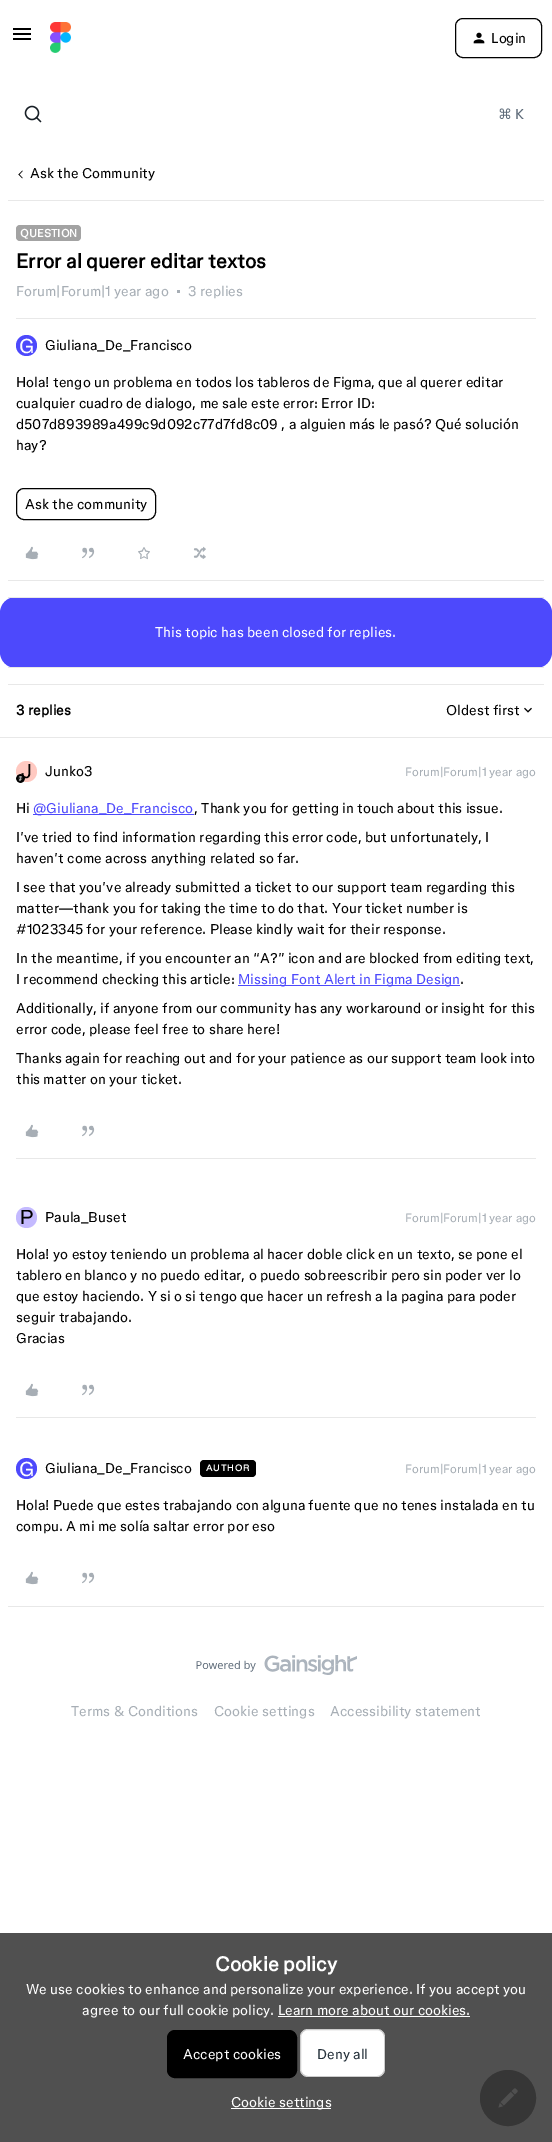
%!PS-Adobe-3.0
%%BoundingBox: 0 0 552 2142
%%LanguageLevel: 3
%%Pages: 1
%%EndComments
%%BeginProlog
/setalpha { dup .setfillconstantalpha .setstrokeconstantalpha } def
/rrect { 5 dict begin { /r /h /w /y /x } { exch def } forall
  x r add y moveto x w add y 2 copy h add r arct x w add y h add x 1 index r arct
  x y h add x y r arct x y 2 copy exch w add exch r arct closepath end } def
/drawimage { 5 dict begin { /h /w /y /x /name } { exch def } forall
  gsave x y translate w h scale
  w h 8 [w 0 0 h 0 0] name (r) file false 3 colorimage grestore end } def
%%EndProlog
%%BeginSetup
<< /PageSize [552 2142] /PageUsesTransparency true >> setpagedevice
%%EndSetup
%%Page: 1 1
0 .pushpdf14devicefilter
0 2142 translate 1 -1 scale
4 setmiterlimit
1 setgray
0 0 552 2142 rectfill
0.314 setgray
0 1933 552 209 rectfill
(images/1.raw) 13 28 18 12 drawimage
(images/2.raw) 50 22 21 31 drawimage
0 setgray
455.5 18.5 86 39 7.5 rrect stroke
(images/3.raw) 473 32 12 12 drawimage
0.094 0.122 0.149 setrgbcolor
1.3 setlinewidth
newpath 32 113 6.5 0 360 arc closepath stroke
1 setlinecap
newpath 36.5 117.5 moveto 40.5 121.5 lineto stroke
(images/4.raw) 18 170 5 9 drawimage
0.91 setgray
8 200 536 1 rectfill
8 580 536 1 rectfill
0.639 setgray
16 225 65 16 4 rrect fill
0.655 0.682 0.71 setrgbcolor
177 290 3 3 rectfill
0.91 setgray
16 318 520 1 rectfill
0.302 0.286 0.988 setrgbcolor
newpath 26.5 345.5 10.5 0 360 arc closepath fill
0 setgray
1 setlinewidth
0 setlinecap
16.5 488.5 139 31 7.5 rrect stroke
(images/5.raw) 25 546 14 14 drawimage
(images/6.raw) 82 547 13 12 drawimage
(images/7.raw) 138 547 12 13 drawimage
(images/8.raw) 193 546 13 13 drawimage
0.302 0.286 0.988 setrgbcolor
0 597 552 71 16 rrect fill
0.91 setgray
8 597 536 1 rectfill
8 667 536 1 rectfill
8 684 536 1 rectfill
8 1606 536 1 rectfill
0 737 552 1 rectfill
(images/9.raw) 524 707 8 6 drawimage
1 0.788 0.757 setrgbcolor
newpath 26.5 771.5 10.5 0 360 arc closepath fill
0.302 0.286 0.988 setrgbcolor
33 814 161 1 rectfill
238 985 222 1 rectfill
(images/5.raw) 25 1124 14 14 drawimage
(images/6.raw) 82 1125 13 12 drawimage
0.91 setgray
16 1158 520 1 rectfill
0.769 0.729 1 setrgbcolor
newpath 26.5 1217.5 10.5 0 360 arc closepath fill
(images/5.raw) 25 1383 14 14 drawimage
(images/6.raw) 82 1384 13 12 drawimage
0.91 setgray
16 1417 520 1 rectfill
0.302 0.286 0.988 setrgbcolor
newpath 26.5 1468.5 10.5 0 360 arc closepath fill
0 setgray
200 1460 56 17 4 rrect fill
(images/5.raw) 25 1571 14 14 drawimage
(images/6.raw) 82 1572 13 12 drawimage
(images/11.raw) 196 1655 161 20 drawimage
1 setgray
278 2016 192 1 rectfill
0 setgray
167.5 2030.5 129 47 7.5 rrect gsave fill grestore
stroke
1 setgray
300 2029 85 48 8 rrect fill
0.2 setalpha
0 setgray
300.5 2029.5 84 47 7.5 rrect stroke
1 setalpha
1 setgray
231 2108 100 1 rectfill
0.212 setgray
newpath 508 2098 27.5 0 360 arc closepath gsave fill grestore
stroke
(images/12.raw) 498 2088 20 20 drawimage
/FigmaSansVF-Regular [14 0 0 -14 0 0] selectfont
0 setgray
491 43 moveto (Login) show
/DejaVuSans-Regular [14 0 0 -14 0 0] selectfont
0.373 0.424 0.478 setrgbcolor
498 119 moveto (⌘) show
/FigmaSansVF-Regular [14 0 0 -14 0 0] selectfont
515 119 moveto (K) show
0 setgray
30 178 moveto (Ask the Community) show
/FigmaSansVF-Bold [11 0 0 -11 0 0] selectfont
1 setgray
20 237 moveto (QUESTION) show
/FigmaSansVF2-Bold [20 0 0 -20 0 0] selectfont
0 setgray
16 268 moveto (Error al querer editar textos) show
/FigmaSansVF-Regular [14 0 0 -14 0 0] selectfont
0.655 0.682 0.71 setrgbcolor
16 296 moveto (Forum|Forum|1 year ago) show
188 296 moveto (3 replies) show
/FigmaSansVF2-Regular [20 0 0 -20 0 0] selectfont
1 setgray
19 353 moveto (G) show
/FigmaSansVF-Regular [14 0 0 -14 0 0] selectfont
0 setgray
45 350 moveto (Giuliana_De_Francisco) show
16 387 moveto (Hola! tengo un problema en todos los tableros de Figma, que al querer editar) show
16 408 moveto (cualquier cuadro de dialogo, me sale este error: Error ID:) show
16 429 moveto (d507d893989a499c9d092c77d7fd8c09 , a alguien más le pasó? Qué solución) show
16 450 moveto (hay?) show
25 509 moveto (Ask the community) show
1 setgray
155 637 moveto (This topic has been closed for replies.) show
/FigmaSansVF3-Bold [14 0 0 -14 0 0] selectfont
0 setgray
16 715 moveto (3 replies) show
/FigmaSansVF-Regular [14 0 0 -14 0 0] selectfont
446 715 moveto (Oldest first) show
/FigmaSansVF2-Regular [20 0 0 -20 0 0] selectfont
21 778 moveto (J) show
(images/10.raw) 16 774 9 9 drawimage
/FigmaSansVF-Regular [14 0 0 -14 0 0] selectfont
45 776 moveto (Junko3) show
/FigmaSansVF3-Regular [12 0 0 -12 0 0] selectfont
0.655 0.682 0.71 setrgbcolor
405 776 moveto (Forum|Forum|1 year ago) show
/FigmaSansVF-Regular [14 0 0 -14 0 0] selectfont
0 setgray
16 813 moveto (Hi) show
0.302 0.286 0.988 setrgbcolor
33 813 moveto (@Giuliana_De_Francisco) show
0 setgray
194 813 moveto (, Thank you for getting in touch about this issue.) show
16 842 moveto (I’ve tried to find information regarding this error code, but unfortunately, I) show
16 863 moveto (haven’t come across anything related so far.) show
16 892 moveto (I see that you’ve already submitted a ticket to our support team regarding this) show
16 913 moveto (matter—thank you for taking the time to do that. Your ticket number is) show
16 934 moveto (#1023345 for your reference. Please kindly wait for their response.) show
16 963 moveto (In the meantime, if you encounter an “A?” icon and are blocked from editing text,) show
16 984 moveto (I recommend checking this article:) show
0.302 0.286 0.988 setrgbcolor
238 984 moveto (Missing Font Alert in Figma Design) show
0 setgray
460 984 moveto (.) show
16 1013 moveto (Additionally, if anyone from our community has any workaround or insight for this) show
16 1034 moveto (error code, please feel free to share here!) show
16 1063 moveto (Thanks again for reaching out and for your patience as our support team look into) show
16 1084 moveto (this matter on your ticket.) show
/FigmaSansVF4-Regular [20 0 0 -20 0 0] selectfont
20 1224 moveto (P) show
/FigmaSansVF-Regular [14 0 0 -14 0 0] selectfont
45 1222 moveto (Paula_Buset) show
/FigmaSansVF3-Regular [12 0 0 -12 0 0] selectfont
0.655 0.682 0.71 setrgbcolor
405 1222 moveto (Forum|Forum|1 year ago) show
/FigmaSansVF-Regular [14 0 0 -14 0 0] selectfont
0 setgray
16 1259 moveto (Hola! yo estoy teniendo un problema al hacer doble click en un texto, se pone el) show
16 1280 moveto (tablero en blanco y no puedo editar, o puedo sobreescribir pero sin poder ver lo) show
16 1301 moveto (que estoy haciendo. Y si o si tengo que hacer un refresh a la pagina para poder) show
16 1322 moveto (seguir trabajando.) show
16 1343 moveto (Gracias) show
/FigmaSansVF2-Regular [20 0 0 -20 0 0] selectfont
1 setgray
19 1476 moveto (G) show
/FigmaSansVF-Regular [14 0 0 -14 0 0] selectfont
0 setgray
45 1473 moveto (Giuliana_De_Francisco) show
/FigmaSansVF4-Bold [9 0 0 -9 0 0] selectfont
1 setgray
206 1471 moveto 1 0 (AUTHOR) ashow
/FigmaSansVF3-Regular [12 0 0 -12 0 0] selectfont
0.655 0.682 0.71 setrgbcolor
405 1473 moveto (Forum|Forum|1 year ago) show
/FigmaSansVF-Regular [14 0 0 -14 0 0] selectfont
0 setgray
16 1510 moveto (Hola! Puede que estes trabajando con alguna fuente que no tenes instalada en tu) show
16 1531 moveto (compu. A mi me solía saltar error por eso) show
0.655 0.682 0.71 setrgbcolor
71 1716 moveto (Terms & Conditions) show
214 1716 moveto (Cookie settings) show
330 1716 moveto (Accessibility statement) show
/FigmaSansVF2-Bold [20 0 0 -20 0 0] selectfont
1 setgray
215 1971 moveto (Cookie policy) show
/FigmaSansVF-Regular [14 0 0 -14 0 0] selectfont
26 1994 moveto (We use cookies to enhance and personalize your experience. If you accept you) show
82 2015 moveto (agree to our full cookie policy. Learn more about our cookies.) show
183 2059 moveto (Accept cookies) show
0.145 0.192 0.231 setrgbcolor
317 2059 moveto (Deny all) show
1 setgray
231 2107 moveto (Cookie settings) show
.poppdf14devicefilter showpage
%%EOF
